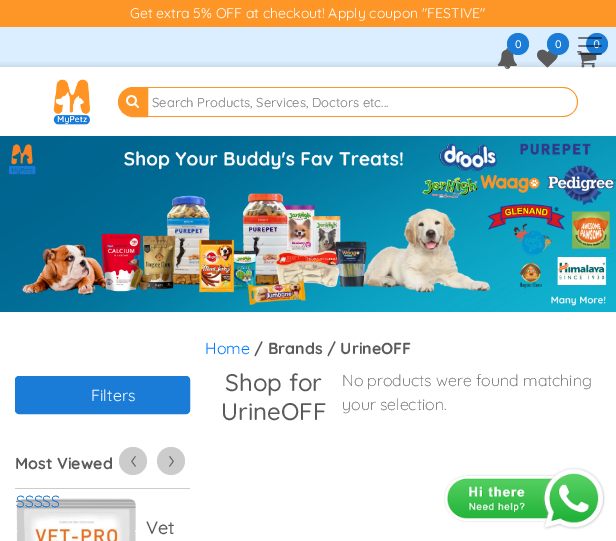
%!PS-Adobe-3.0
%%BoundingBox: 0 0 616 541
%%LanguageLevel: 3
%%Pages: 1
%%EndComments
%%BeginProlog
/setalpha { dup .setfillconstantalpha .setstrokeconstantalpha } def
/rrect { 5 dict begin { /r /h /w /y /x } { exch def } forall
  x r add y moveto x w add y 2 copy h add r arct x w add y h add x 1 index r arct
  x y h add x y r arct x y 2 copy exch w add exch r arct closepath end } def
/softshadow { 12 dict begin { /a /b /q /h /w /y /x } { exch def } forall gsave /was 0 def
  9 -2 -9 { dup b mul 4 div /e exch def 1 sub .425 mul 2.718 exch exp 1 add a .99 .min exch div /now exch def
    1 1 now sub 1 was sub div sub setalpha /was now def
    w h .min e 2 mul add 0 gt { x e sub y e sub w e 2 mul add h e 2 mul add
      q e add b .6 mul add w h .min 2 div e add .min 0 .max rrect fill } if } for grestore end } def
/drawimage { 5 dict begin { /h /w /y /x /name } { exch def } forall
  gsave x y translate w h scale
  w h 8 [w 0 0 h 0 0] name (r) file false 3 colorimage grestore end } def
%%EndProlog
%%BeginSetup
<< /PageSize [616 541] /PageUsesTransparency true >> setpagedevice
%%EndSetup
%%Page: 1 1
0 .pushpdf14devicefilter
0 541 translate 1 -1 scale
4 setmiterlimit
1 setgray
0 0 616 541 rectfill
0.992 0.588 0.149 setrgbcolor
0 0 616 27 rectfill
0.859 0.933 1 setrgbcolor
0 27 616 40 rectfill
gsave
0 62 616 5 rectclip
0 setgray
0 68 616 69 0 4.5 0.2 softshadow
grestore
(images/2.raw) 53 79 37 46 drawimage
(images/3.raw) 497 48 20 21 drawimage
0.106 0.486 0.843 setrgbcolor
newpath 518 44 11 0 360 arc closepath fill
(images/4.raw) 537 49 21 19 drawimage
newpath 558 44 11 0 360 arc closepath fill
(images/5.raw) 577 51 20 17 drawimage
newpath 597 44 11 0 360 arc closepath fill
0.992 0.588 0.149 setrgbcolor
newpath 133 87.5 moveto 147.5 87.5 lineto 147.5 116.5 lineto 133 116.5 lineto 125 116.5 118.5 110 118.5 102 curveto 118.5 94 125 87.5 133 87.5 curveto closepath gsave fill grestore
stroke
(images/6.raw) 126 95 13 13 drawimage
newpath 148 87 moveto 563 87 lineto 571 87 578 94 578 102 curveto 578 110 571 117 563 117 curveto 148 117 lineto closepath 148 88 moveto 563 88 lineto 571 88 577 94 577 102 curveto 577 110 571 116 563 116 curveto 148 116 lineto closepath eofill
(images/7.raw) 0 136 616 176 drawimage
0.106 0.486 0.843 setrgbcolor
15.5 376.5 174 37 3.5 rrect gsave fill grestore
stroke
0.8 setgray
newpath 133 461 14 0 360 arc closepath fill
newpath 171 461 14 0 360 arc closepath fill
(images/8.raw) 16 498 120 43 drawimage
15 488 175 1 rectfill
(images/9.raw) 444 467 161 63 drawimage
/Quicksand-Regular [14 0 0 -14 0 0] selectfont
1 setgray
130 18 moveto (Get extra 5% OFF at checkout! Apply coupon "FESTIVE") show
/Quicksand-Medium [11 0 0 -11 0 0] selectfont
515 48 moveto (0) show
555 48 moveto (0) show
593 48 moveto (0) show
(images/1.raw) 578 37 24 18 drawimage
/Quicksand-Regular [13 0 0 -13 0 0] selectfont
0.459 setgray
152 107 moveto (Search Products, Services, Doctors etc...) show
/Quicksand-Regular [16 0 0 -16 0 0] selectfont
0 0.482 1 setrgbcolor
205 354 moveto (Home) show
/Quicksand-Bold [16 0 0 -16 0 0] selectfont
0.353 setgray
254 354 moveto (/ Brands / UrineOFF) show
/Quicksand-Regular [16 0 0 -16 0 0] selectfont
1 setgray
91 401 moveto (Filters) show
/Quicksand-Light [26 0 0 -26 0 0] selectfont
0.353 setgray
130 468 moveto (‹) show
168 468 moveto (›) show
/Quicksand-Light [16 0 0 -16 0 0] selectfont
0.106 0.486 0.843 setrgbcolor
16 507 moveto (SSSSS) show
/Quicksand-Medium [18 0 0 -18 0 0] selectfont
0.353 setgray
146 534 moveto (Vet) show
/Quicksand-Light [16 0 0 -16 0 0] selectfont
0.106 0.486 0.843 setrgbcolor
16 507 moveto (SSSSS) show
/Quicksand-Bold [16 0 0 -16 0 0] selectfont
0.353 setgray
15 469 moveto (Most Viewed) show
/Quicksand-Medium [24 0 0 -24 0 0] selectfont
225 391 moveto (Shop for) show
221 420 moveto (UrineOFF) show
/Quicksand-Light [16 0 0 -16 0 0] selectfont
342 386 moveto (No products were found matching) show
342 410 moveto (your selection.) show
.poppdf14devicefilter showpage
%%EOF
